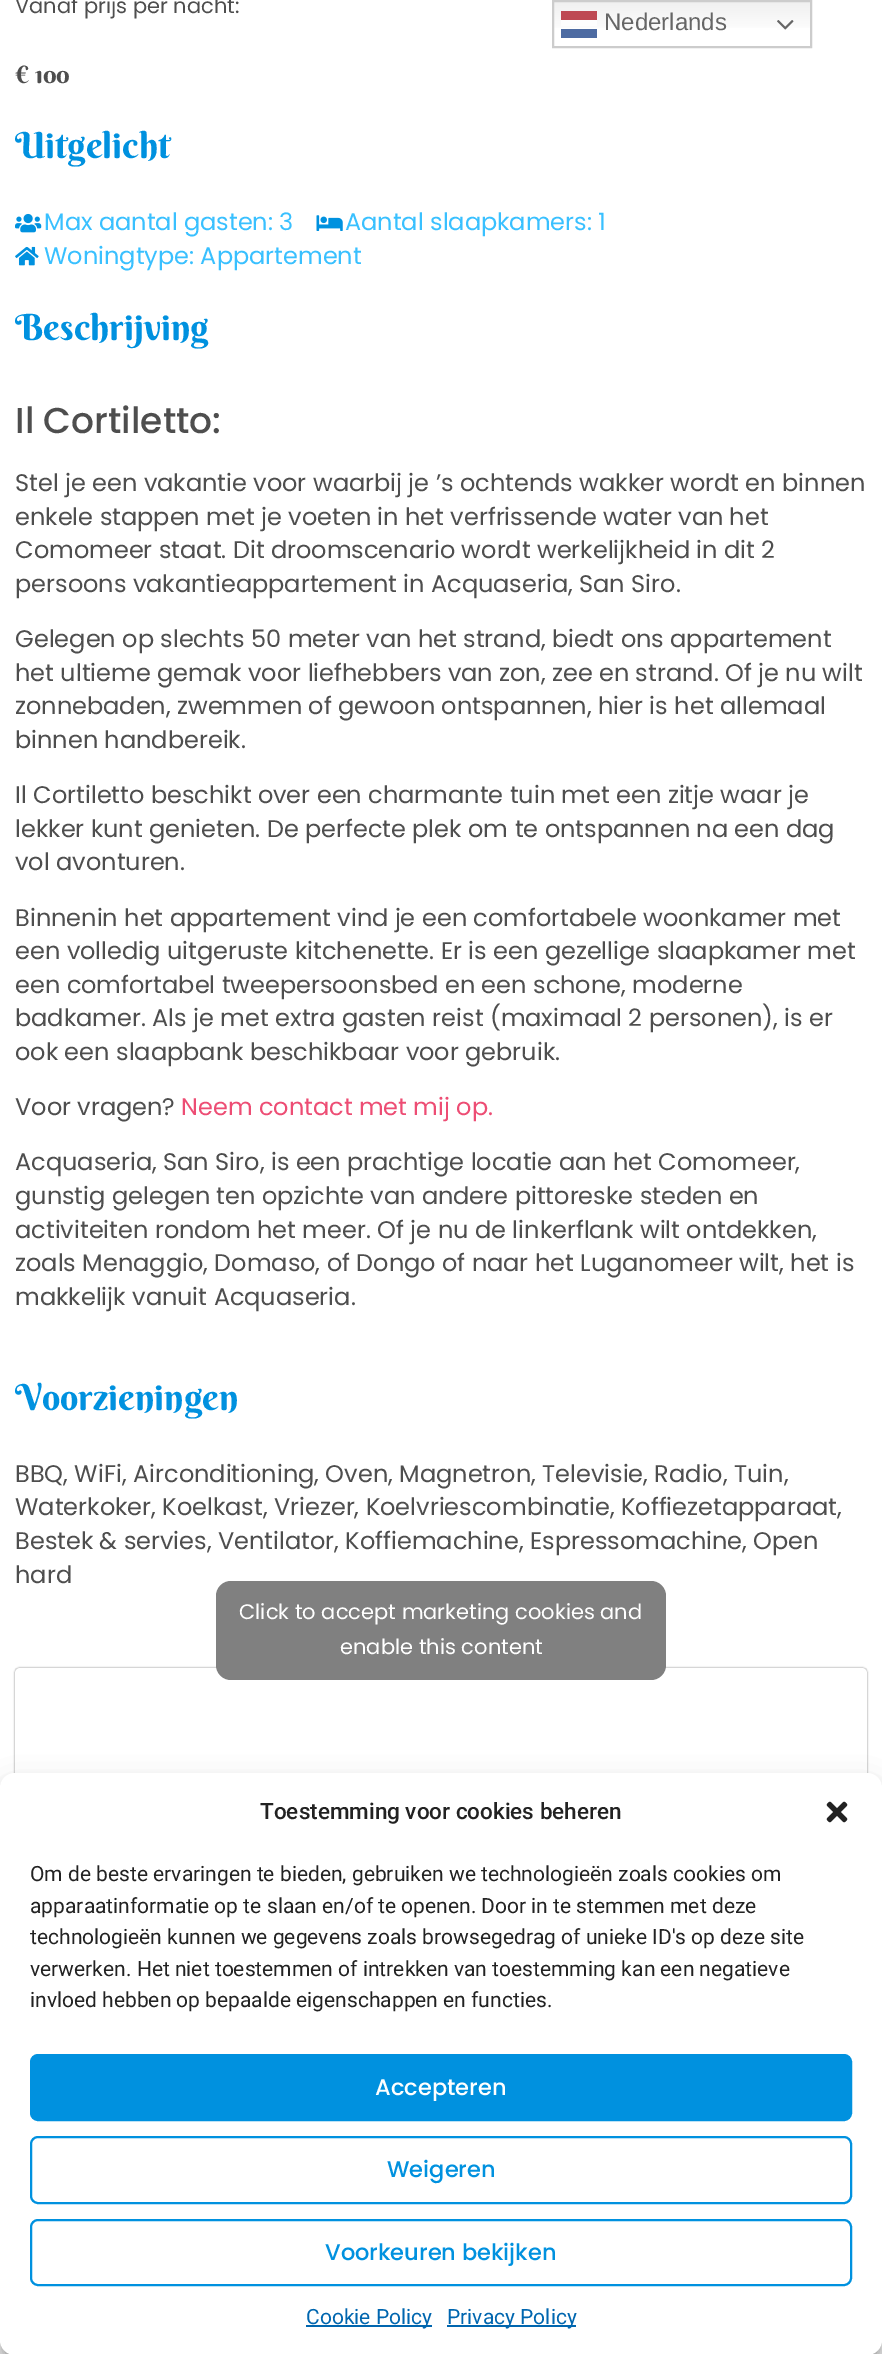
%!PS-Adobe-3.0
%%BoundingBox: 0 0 882 2354
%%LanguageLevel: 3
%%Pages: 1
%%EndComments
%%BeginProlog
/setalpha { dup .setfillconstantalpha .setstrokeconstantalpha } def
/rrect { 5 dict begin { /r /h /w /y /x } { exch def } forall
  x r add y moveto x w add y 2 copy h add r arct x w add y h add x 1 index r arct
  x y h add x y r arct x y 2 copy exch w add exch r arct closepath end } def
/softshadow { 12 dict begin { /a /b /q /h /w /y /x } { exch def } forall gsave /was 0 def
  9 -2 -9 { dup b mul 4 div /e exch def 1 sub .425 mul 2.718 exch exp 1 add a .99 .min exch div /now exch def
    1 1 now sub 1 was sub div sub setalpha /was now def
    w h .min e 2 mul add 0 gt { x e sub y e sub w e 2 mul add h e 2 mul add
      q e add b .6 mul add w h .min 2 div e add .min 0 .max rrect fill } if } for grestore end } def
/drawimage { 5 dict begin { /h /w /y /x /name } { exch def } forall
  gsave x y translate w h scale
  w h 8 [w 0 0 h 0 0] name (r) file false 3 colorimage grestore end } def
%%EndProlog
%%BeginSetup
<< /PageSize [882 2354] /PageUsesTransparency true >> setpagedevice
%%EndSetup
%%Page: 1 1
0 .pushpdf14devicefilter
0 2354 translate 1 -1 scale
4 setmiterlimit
1 setgray
0 0 882 2354 rectfill
(images/1.raw) 15 213 27 20 drawimage
(images/2.raw) 316 215 27 16 drawimage
(images/3.raw) 15 246 24 20 drawimage
gsave
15 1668 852 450 rectclip
0 setgray
15 1670 852 450 5 7.5 0.15 softshadow
grestore
0 setgray
15 1668 852 450 5 1 0.5 softshadow
1 setgray
15 1668 852 450 5 rrect fill
0.502 setgray
216 1581 450 99 15 rrect fill
gsave newpath 554 2 moveto 810 2 lineto 810 28 lineto 554 28 lineto closepath clip newpath
<< /ShadingType 2 /ColorSpace /DeviceRGB /Coords [682 0 682 48] /Extend [true true] /Function << /FunctionType 3 /Domain [0 1] /Functions [<< /FunctionType 2 /Domain [0 1] /C0 [0.937 0.937 0.937] /C1 [1 1 1] /N 1 >> << /FunctionType 2 /Domain [0 1] /C0 [1 1 1] /C1 [1 1 1] /N 1 >>] /Bounds [0.7] /Encode [0 1 0 1] >> >> shfill grestore
gsave newpath 561 20 moveto 597 20 lineto 597 26 lineto 561 26 lineto closepath clip newpath
<< /ShadingType 2 /ColorSpace /DeviceRGB /Coords [682 0 682 48] /Extend [true true] /Function << /FunctionType 3 /Domain [0 1] /Functions [<< /FunctionType 2 /Domain [0 1] /C0 [0.988 0.988 0.988] /C1 [1 1 1] /N 1 >> << /FunctionType 2 /Domain [0 1] /C0 [1 1 1] /C1 [1 1 1] /N 1 >>] /Bounds [0.7] /Encode [0 1 0 1] >> >> shfill grestore
0.8 setgray
2 setlinewidth
553 1 258 46 rectstroke
0.745 0.286 0.325 setrgbcolor
561 11 36 9 rectfill
(images/4.raw) 777 20 17 10 drawimage
0.302 0.42 0.635 setrgbcolor
561 29 36 9 rectfill
0 setgray
0 1782 882 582 15 4.5 0.23 softshadow
0 1788 882 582 15 15 0.19 softshadow
1 setgray
0 1773 882 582 15 rrect fill
(images/5.raw) 826 1801 22 22 drawimage
0 0.569 0.875 setrgbcolor
31 2055 820 65 7 rrect gsave fill grestore
stroke
31 2137 820 66 7 rrect stroke
31 2220 820 65 7 rrect stroke
0 0.4 0.686 setrgbcolor
306 2325 126 2 rectfill
447 2325 129 2 rectfill
/Poppins-Regular [21 0 0 -21 0 0] selectfont
0.306 setgray
15 13 moveto (Vanaf prijs per nacht:) show
/BerkshireSwash-Regular [24 0 0 -24 0 0] selectfont
15 83 moveto (€ 100) show
/BerkshireSwash-Regular [36 0 0 -36 0 0] selectfont
0 0.569 0.875 setrgbcolor
15 158 moveto (Uitgelicht) show
/Poppins-Regular [24 0 0 -24 0 0] selectfont
0.224 0.753 1 setrgbcolor
44 230 moveto (Max aantal gasten: 3) show
345 230 moveto (Aantal slaapkamers: 1) show
44 264 moveto (Woningtype: Appartement) show
/BerkshireSwash-Regular [36 0 0 -36 0 0] selectfont
0 0.569 0.875 setrgbcolor
15 340 moveto (Beschrijving) show
/Poppins-Medium [36 0 0 -36 0 0] selectfont
0.306 setgray
15 433 moveto (Il Cortiletto:) show
/Poppins-Regular [24 0 0 -24 0 0] selectfont
15 491 moveto (Stel je een vakantie voor waarbij je ’s ochtends wakker wordt en binnen) show
15 525 moveto (enkele stappen met je voeten in het verfrissende water van het) show
15 558 moveto (Comomeer staat. Dit droomscenario wordt werkelijkheid in dit 2) show
15 592 moveto (persoons vakantieappartement in Acquaseria, San Siro.) show
15 647 moveto (Gelegen op slechts 50 meter van het strand, biedt ons appartement) show
15 681 moveto (het ultieme gemak voor liefhebbers van zon, zee en strand. Of je nu wilt) show
15 714 moveto (zonnebaden, zwemmen of gewoon ontspannen, hier is het allemaal) show
15 748 moveto (binnen handbereik.) show
15 803 moveto (Il Cortiletto beschikt over een charmante tuin met een zitje waar je) show
15 837 moveto (lekker kunt genieten. De perfecte plek om te ontspannen na een dag) show
15 870 moveto (vol avonturen.) show
15 926 moveto (Binnenin het appartement vind je een comfortabele woonkamer met) show
15 959 moveto (een volledig uitgeruste kitchenette. Er is een gezellige slaapkamer met) show
15 993 moveto (een comfortabel tweepersoonsbed en een schone, moderne) show
15 1026 moveto (badkamer. Als je met extra gasten reist \(maximaal 2 personen\), is er) show
15 1060 moveto (ook een slaapbank beschikbaar voor gebruik.) show
15 1115 moveto (Voor vragen?) show
0.929 0.302 0.455 setrgbcolor
181 1115 moveto (Neem contact met mij op.) show
0.306 setgray
15 1170 moveto (Acquaseria, San Siro, is een prachtige locatie aan het Comomeer,) show
15 1204 moveto (gunstig gelegen ten opzichte van andere pittoreske steden en) show
15 1238 moveto (activiteiten rondom het meer. Of je nu de linkerflank wilt ontdekken,) show
15 1271 moveto (zoals Menaggio, Domaso, of Dongo of naar het Luganomeer wilt, het is) show
15 1305 moveto (makkelijk vanuit Acquaseria.) show
/BerkshireSwash-Regular [36 0 0 -36 0 0] selectfont
0 0.569 0.875 setrgbcolor
15 1410 moveto (Voorzieningen) show
/Poppins-Regular [24 0 0 -24 0 0] selectfont
0.306 setgray
15 1482 moveto (BBQ, WiFi, Airconditioning, Oven, Magnetron, Televisie, Radio, Tuin,) show
15 1515 moveto (Waterkoker, Koelkast, Vriezer, Koelvriescombinatie, Koffiezetapparaat,) show
15 1549 moveto (Bestek & servies, Ventilator, Koffiemachine, Espressomachine, Open) show
15 1583 moveto (hard) show
/Poppins-Regular [21 0 0 -21 0 0] selectfont
1 setgray
239 1619 moveto (Click to accept marketing cookies and) show
340 1654 moveto (enable this content) show
/LiberationSans-Regular [24 0 0 -24 0 0] selectfont
0.4 setgray
604 30 moveto (Nederlands) show
/Roboto-Medium [22.5 0 0 -22.5 0 0] selectfont
0.133 setgray
260 1819 moveto (Toestemming voor cookies beheren) show
/Roboto-Regular [21 0 0 -21 0 0] selectfont
30 1881 moveto (Om de beste ervaringen te bieden, gebruiken we technologieën zoals cookies om) show
30 1913 moveto (apparaatinformatie op te slaan en/of te openen. Door in te stemmen met deze) show
30 1944 moveto (technologieën kunnen we gegevens zoals browsegedrag of unieke ID's op deze site) show
30 1976 moveto (verwerken. Het niet toestemmen of intrekken van toestemming kan een negatieve) show
30 2007 moveto (invloed hebben op bepaalde eigenschappen en functies.) show
/Poppins-Medium [22.5 0 0 -22.5 0 0] selectfont
1 setgray
375 2095 moveto (Accepteren) show
0 0.569 0.875 setrgbcolor
387 2177 moveto (Weigeren) show
325 2260 moveto (Voorkeuren bekijken) show
/Roboto-Regular [21 0 0 -21 0 0] selectfont
0 0.4 0.686 setrgbcolor
306 2324 moveto (Cookie Policy) show
447 2324 moveto (Privacy Policy) show
.poppdf14devicefilter showpage
%%EOF
